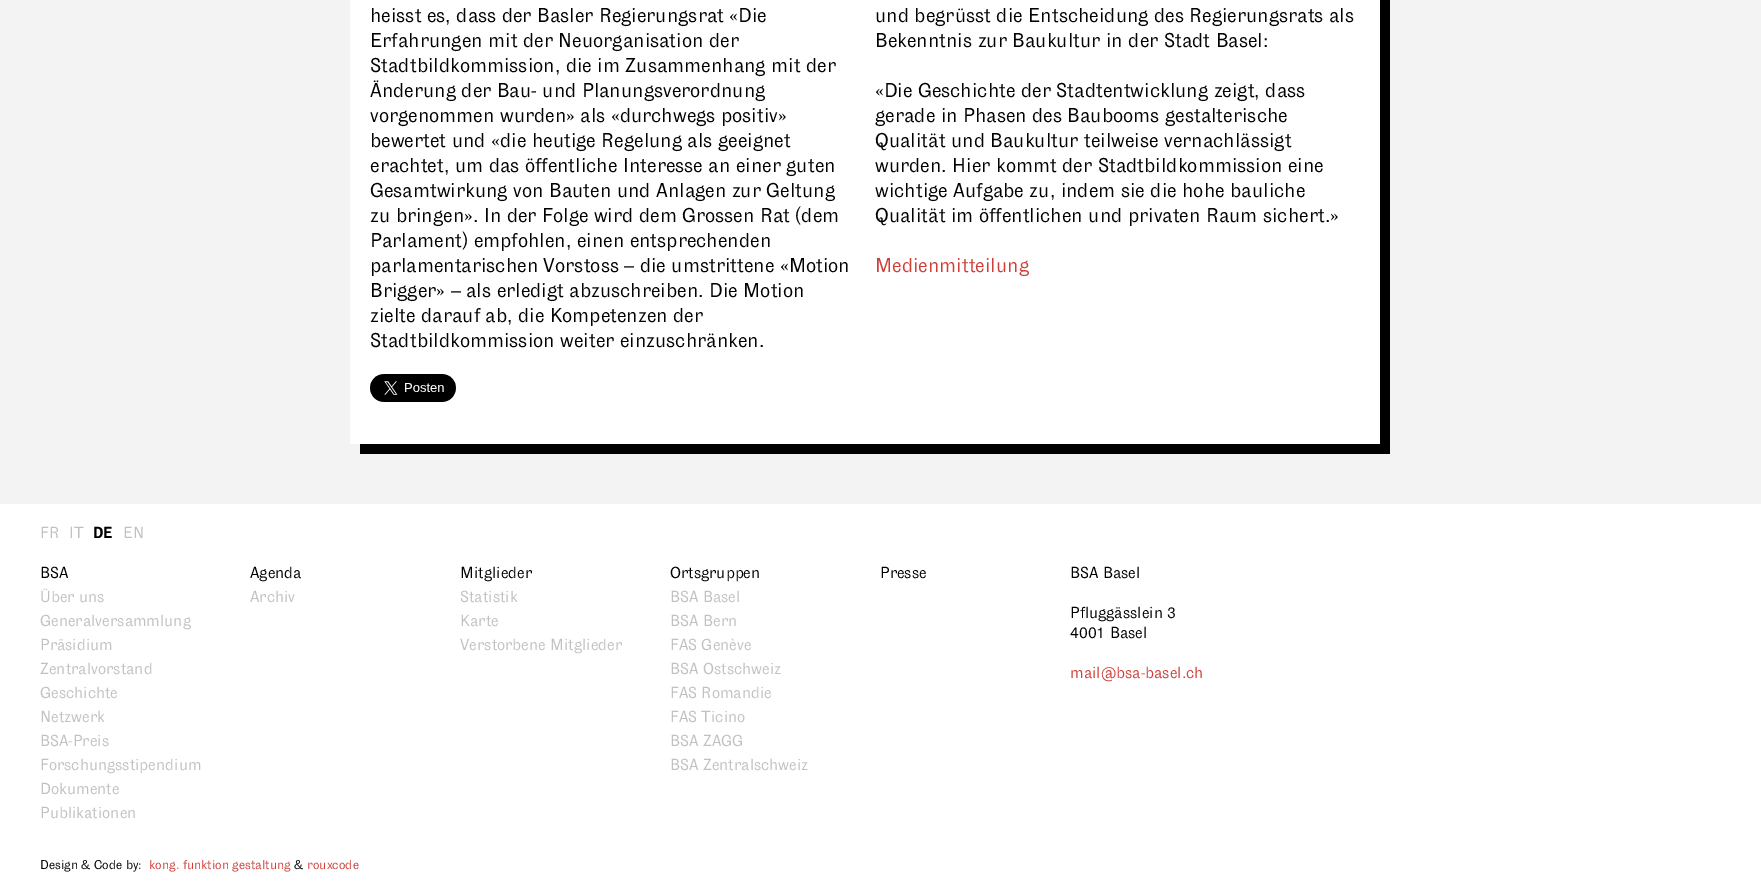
%!PS-Adobe-3.0
%%BoundingBox: 0 0 1761 894
%%LanguageLevel: 3
%%Pages: 1
%%EndComments
%%BeginProlog
/drawimage { 5 dict begin { /h /w /y /x /name } { exch def } forall
  gsave x y translate w h scale
  w h 8 [w 0 0 h 0 0] name (r) file false 3 colorimage grestore end } def
%%EndProlog
%%BeginSetup
<< /PageSize [1761 894] >> setpagedevice
%%EndSetup
%%Page: 1 1
0 894 translate 1 -1 scale
4 setmiterlimit
0.953 setgray
0 0 1761 894 rectfill
0 setgray
newpath 360 444 moveto 360 454 lineto 1390 454 lineto 1390 -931 lineto 1380 -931 lineto 1380 444 lineto closepath fill
1 setgray
350 0 1030 444 rectfill
(images/1.raw) 370 374 86 28 drawimage
0 504 1761 390 rectfill
/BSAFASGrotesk-Regular [20 0 0 -20 0 0] selectfont
0 setgray
370 22 moveto (heisst es, dass der Basler Regierungsrat «Die) show
370 47 moveto (Erfahrungen mit der Neuorganisation der) show
370 72 moveto (Stadtbildkommission, die im Zusammenhang mit der) show
370 97 moveto (Änderung der Bau- und Planungsverordnung) show
370 122 moveto (vorgenommen wurden» als «durchwegs positiv») show
370 147 moveto (bewertet und «die heutige Regelung als geeignet) show
370 172 moveto (erachtet, um das öffentliche Interesse an einer guten) show
370 197 moveto (Gesamtwirkung von Bauten und Anlagen zur Geltung) show
370 222 moveto (zu bringen». In der Folge wird dem Grossen Rat \(dem) show
370 247 moveto (Parlament\) empfohlen, einen entsprechenden) show
370 272 moveto (parlamentarischen Vorstoss – die umstrittene «Motion) show
370 297 moveto (Brigger» – als erledigt abzuschreiben. Die Motion) show
370 322 moveto (zielte darauf ab, die Kompetenzen der) show
370 347 moveto (Stadtbildkommission weiter einzuschränken.) show
875 22 moveto (und begrüsst die Entscheidung des Regierungsrats als) show
875 47 moveto (Bekenntnis zur Baukultur in der Stadt Basel:) show
875 97 moveto («Die Geschichte der Stadtentwicklung zeigt, dass) show
875 122 moveto (gerade in Phasen des Baubooms gestalterische) show
875 147 moveto (Qualität und Baukultur teilweise vernachlässigt) show
875 172 moveto (wurden. Hier kommt der Stadtbildkommission eine) show
875 197 moveto (wichtige Aufgabe zu, indem sie die hohe bauliche) show
875 222 moveto (Qualität im öffentlichen und privaten Raum sichert.») show
0.812 0.243 0.216 setrgbcolor
875 272 moveto (Medienmitteilung) show
/BSAFASGrotesk-Regular [16 0 0 -16 0 0] selectfont
0.757 setgray
40 538 moveto (FR) show
69 538 moveto (IT) show
/BSAFASGrotesk-Bold [16 0 0 -16 0 0] selectfont
0 setgray
93 538 moveto (DE) show
/BSAFASGrotesk-Regular [16 0 0 -16 0 0] selectfont
0.757 setgray
123 538 moveto (EN) show
0 setgray
40 578 moveto (BSA) show
0.757 setgray
40 602 moveto (Über uns) show
40 626 moveto (Generalversammlung) show
40 650 moveto (Präsidium) show
40 674 moveto (Zentralvorstand) show
40 698 moveto (Geschichte) show
40 722 moveto (Netzwerk) show
40 746 moveto (BSA-Preis) show
40 770 moveto (Forschungsstipendium) show
40 794 moveto (Dokumente) show
40 818 moveto (Publikationen) show
0 setgray
250 578 moveto (Agenda) show
0.757 setgray
250 602 moveto (Archiv) show
0 setgray
460 578 moveto (Mitglieder) show
0.757 setgray
460 602 moveto (Statistik) show
460 626 moveto (Karte) show
460 650 moveto (Verstorbene Mitglieder) show
0 setgray
670 578 moveto (Ortsgruppen) show
0.757 setgray
670 602 moveto (BSA Basel) show
670 626 moveto (BSA Bern) show
670 650 moveto (FAS Genève) show
670 674 moveto (BSA Ostschweiz) show
670 698 moveto (FAS Romandie) show
670 722 moveto (FAS Ticino) show
670 746 moveto (BSA ZAGG) show
670 770 moveto (BSA Zentralschweiz) show
0 setgray
880 578 moveto (Presse) show
1070 578 moveto (BSA Basel) show
1070 618 moveto (Pfluggässlein 3) show
1070 638 moveto (4001 Basel) show
0.812 0.243 0.216 setrgbcolor
1070 678 moveto (mail@bsa-basel.ch) show
/BSAFASGrotesk-Regular [12.75 0 0 -12.75 0 0] selectfont
0 setgray
40 869 moveto (Design & Code by:) show
0.812 0.243 0.216 setrgbcolor
149 869 moveto (kong. funktion gestaltung) show
0 setgray
294 869 moveto (&) show
0.812 0.243 0.216 setrgbcolor
307 869 moveto (rouxcode) show
showpage
%%EOF
